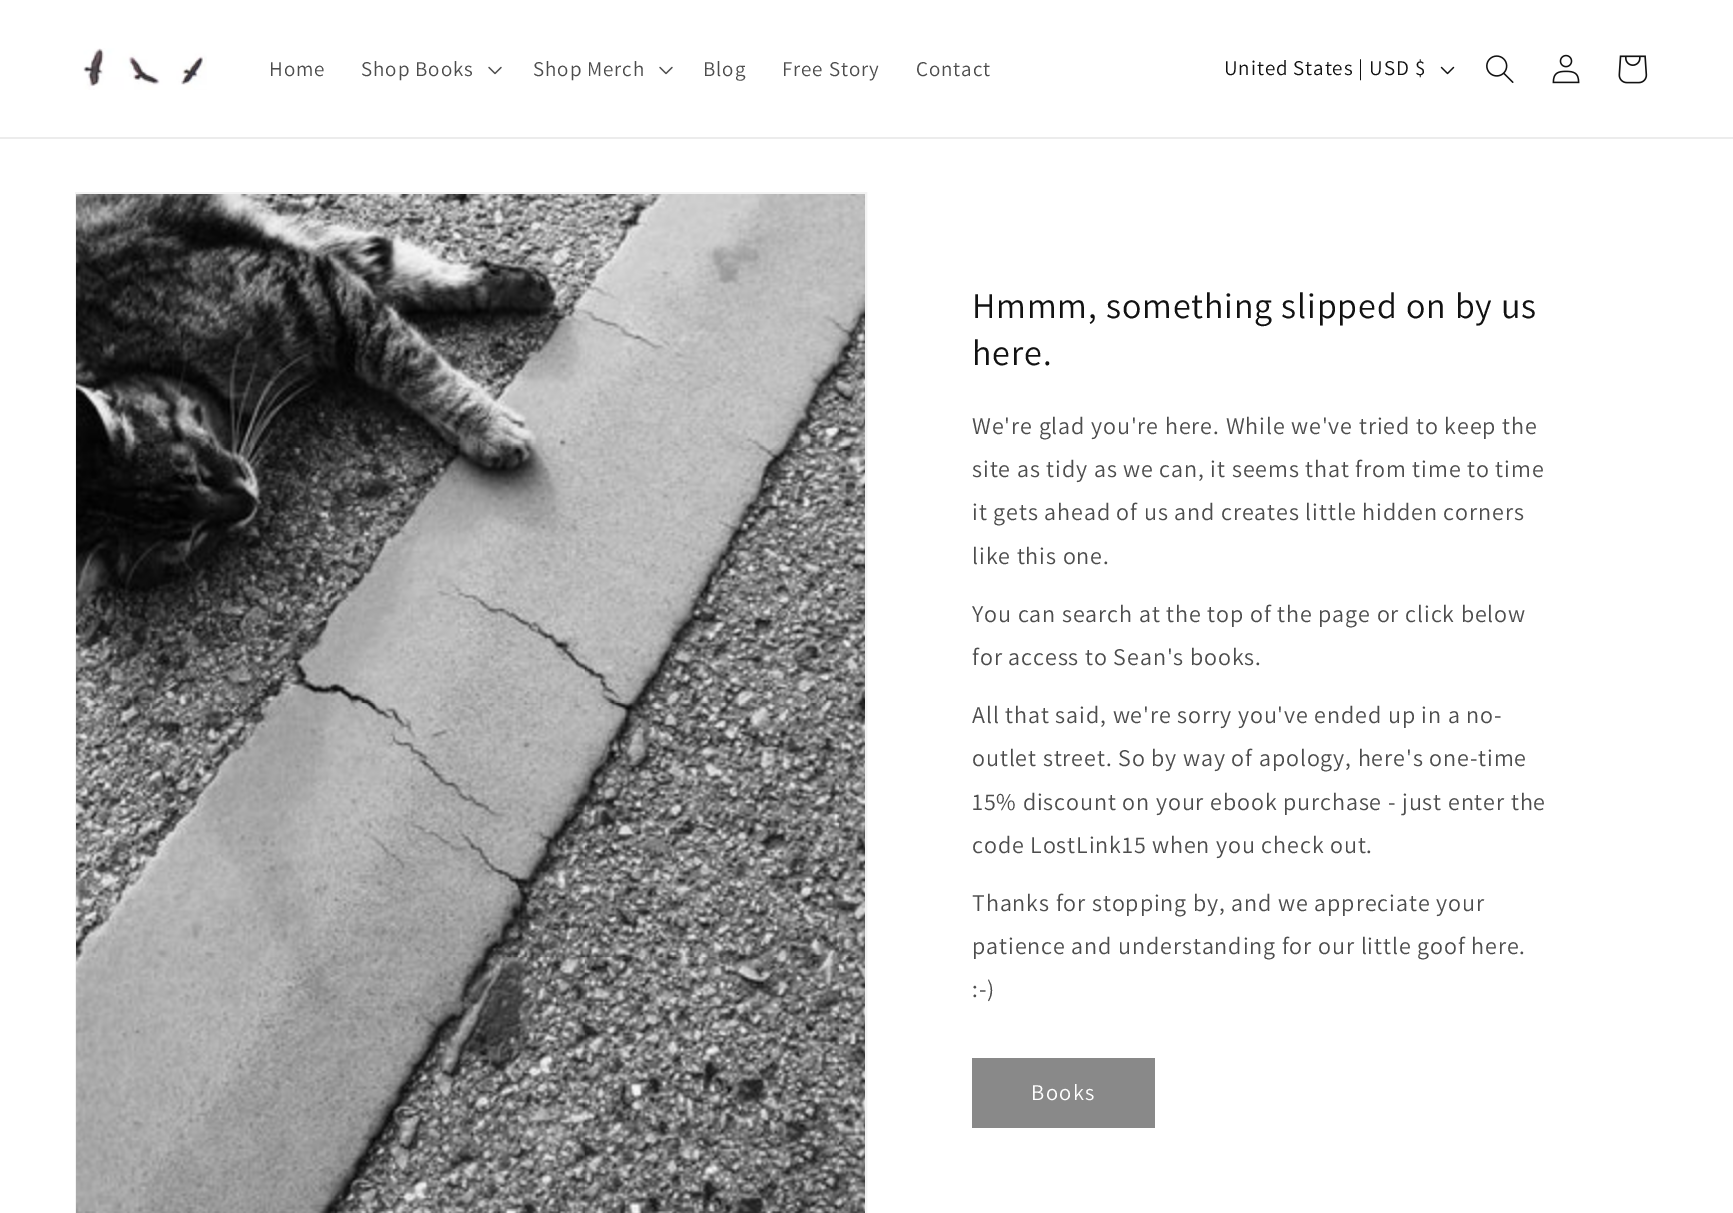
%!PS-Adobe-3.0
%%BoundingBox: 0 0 1733 1213
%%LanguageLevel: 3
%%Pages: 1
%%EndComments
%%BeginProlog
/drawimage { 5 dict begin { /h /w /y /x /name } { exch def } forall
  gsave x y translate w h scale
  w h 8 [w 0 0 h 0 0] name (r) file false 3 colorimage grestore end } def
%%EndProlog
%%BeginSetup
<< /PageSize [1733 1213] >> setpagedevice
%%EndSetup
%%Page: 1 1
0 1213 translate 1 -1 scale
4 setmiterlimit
1 setgray
0 0 1733 1213 rectfill
0.925 setgray
0 137 1733 2 rectfill
(images/1.raw) 83 48 124 42 drawimage
(images/2.raw) 488 66 14 9 drawimage
(images/2.raw) 659 66 14 9 drawimage
(images/3.raw) 1440 66 15 9 drawimage
(images/4.raw) 1486 55 28 28 drawimage
(images/5.raw) 1552 54 28 30 drawimage
(images/6.raw) 1618 55 30 29 drawimage
0.953 setgray
2 setlinewidth
76 193 790 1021 rectstroke
(images/7.raw) 76 194 789 1019 drawimage
0.537 setgray
972 1058 183 70 rectfill
/Assistant-Regular [21 0 0 -21 0 0] selectfont
0.302 setgray
269 76 moveto 0.9 0 (Home) ashow
361 76 moveto 0.9 0 (Shop Books) ashow
533 76 moveto 0.9 0 (Shop Merch) ashow
703 76 moveto 0.9 0 (Blog) ashow
782 76 moveto 0.9 0 (Free Story) ashow
916 76 moveto 0.9 0 (Contact) ashow
0.071 setgray
1224 75 moveto 0.9 0 (United States | USD $) ashow
/Assistant-Regular [36 0 0 -36 0 0] selectfont
972 318 moveto 0.9 0 (Hmmm, something slipped on by us) ashow
972 365 moveto 0.9 0 (here.) ashow
/Assistant-Regular [24 0 0 -24 0 0] selectfont
0.302 setgray
972 434 moveto 0.9 0 (We're glad you're here. While we've tried to keep the) ashow
972 477 moveto 0.9 0 (site as tidy as we can, it seems that from time to time) ashow
972 520 moveto 0.9 0 (it gets ahead of us and creates little hidden corners) ashow
972 564 moveto 0.9 0 (like this one.) ashow
972 622 moveto 0.9 0 (You can search at the top of the page or click below) ashow
972 665 moveto 0.9 0 (for access to Sean's books.) ashow
972 723 moveto 0.9 0 (All that said, we're sorry you've ended up in a no-) ashow
972 766 moveto 0.9 0 (outlet street. So by way of apology, here's one-time) ashow
972 810 moveto 0.9 0 (15% discount on your ebook purchase - just enter the) ashow
972 853 moveto 0.9 0 (code LostLink15 when you check out.) ashow
972 911 moveto 0.9 0 (Thanks for stopping by, and we appreciate your) ashow
972 954 moveto 0.9 0 (patience and understanding for our little goof here.) ashow
972 997 moveto 0.9 0 (:-\)) ashow
/Assistant-Regular [22.5 0 0 -22.5 0 0] selectfont
1 setgray
1031 1100 moveto 1.5 0 (Books) ashow
showpage
%%EOF
